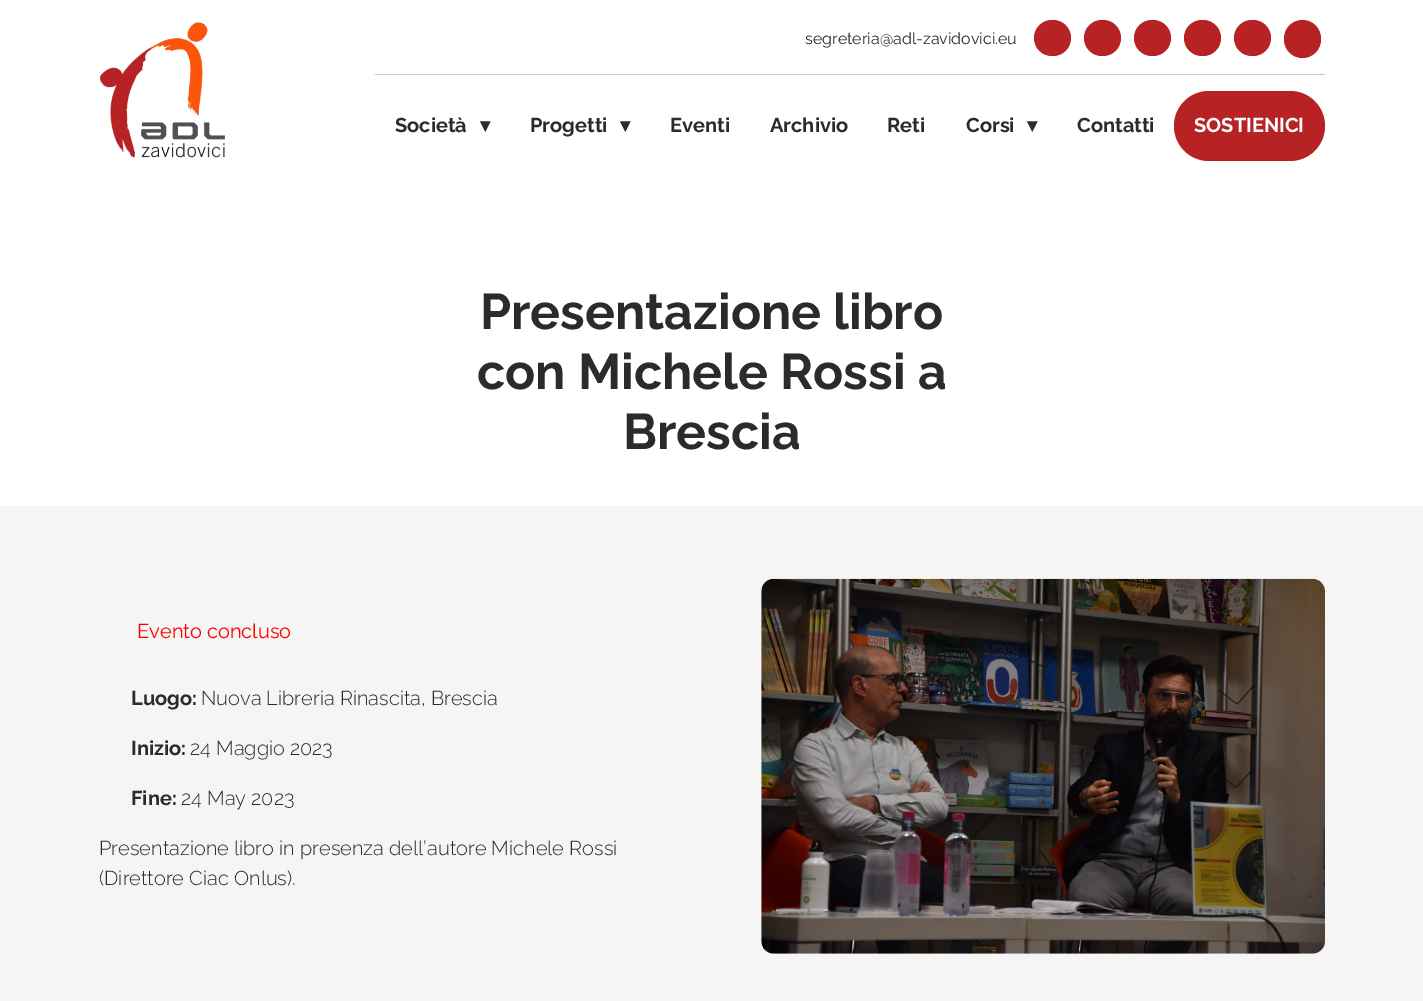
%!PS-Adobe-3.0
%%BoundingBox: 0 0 1423 1001
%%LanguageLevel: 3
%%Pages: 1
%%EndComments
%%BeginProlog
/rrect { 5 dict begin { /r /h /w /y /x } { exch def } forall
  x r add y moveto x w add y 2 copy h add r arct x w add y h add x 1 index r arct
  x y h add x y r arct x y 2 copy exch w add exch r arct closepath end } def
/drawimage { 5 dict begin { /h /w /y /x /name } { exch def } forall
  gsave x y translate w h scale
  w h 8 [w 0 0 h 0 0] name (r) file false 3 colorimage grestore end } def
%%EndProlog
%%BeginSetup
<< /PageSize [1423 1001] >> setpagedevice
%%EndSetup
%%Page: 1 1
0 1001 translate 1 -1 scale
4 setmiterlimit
1 setgray
0 0 1423 1001 rectfill
(images/1.raw) 100 22 125 136 drawimage
0.776 setgray
375 74 950 1 rectfill
0.718 0.133 0.141 setrgbcolor
1034 20 37 36 18 rrect fill
1084 20 37 36 18 rrect fill
1134 20 37 36 18 rrect fill
1184 20 37 36 18 rrect fill
1234 20 37 36 18 rrect fill
1284 20 37 38 18.5 rrect fill
1174 91 151 70 35 rrect fill
0.961 setgray
0 506 1423 495 rectfill
(images/2.raw) 761 578 564 376 drawimage
/Raleway-Regular [16 0 0 -16 0 0] selectfont
0.169 setgray
805 44 moveto (segreteria@adl-zavidovici.eu) show
/Raleway-Bold [20 0 0 -20 0 0] selectfont
395 132 moveto (Società) show
/DejaVuSans-Bold [20 0 0 -20 0 0] selectfont
480 132 moveto (▾) show
/Raleway-Bold [20 0 0 -20 0 0] selectfont
530 132 moveto (Progetti) show
/DejaVuSans-Bold [20 0 0 -20 0 0] selectfont
620 132 moveto (▾) show
/Raleway-Bold [20 0 0 -20 0 0] selectfont
670 132 moveto (Eventi) show
770 132 moveto (Archivio) show
887 132 moveto (Reti) show
966 132 moveto (Corsi) show
/DejaVuSans-Bold [20 0 0 -20 0 0] selectfont
1027 132 moveto (▾) show
/Raleway-Bold [20 0 0 -20 0 0] selectfont
1077 132 moveto (Contatti) show
1 setgray
1194 132 moveto (SOSTIENICI) show
/Raleway-Bold [50 0 0 -50 0 0] selectfont
0.169 setgray
480 329 moveto (Presentazione libro) show
477 389 moveto (con Michele Rossi a) show
623 449 moveto (Brescia) show
/Raleway-Regular [20 0 0 -20 0 0] selectfont
1 0 0 setrgbcolor
137 638 moveto (Evento concluso) show
/Raleway-Bold [20 0 0 -20 0 0] selectfont
0.169 setgray
131 705 moveto (Luogo:) show
/Raleway-Light [20 0 0 -20 0 0] selectfont
201 705 moveto (Nuova Libreria Rinascita, Brescia) show
/Raleway-Bold [20 0 0 -20 0 0] selectfont
131 755 moveto (Inizio:) show
/Raleway-Light [20 0 0 -20 0 0] selectfont
190 755 moveto (24 Maggio 2023) show
/Raleway-Bold [20 0 0 -20 0 0] selectfont
131 805 moveto (Fine:) show
/Raleway-Light [20 0 0 -20 0 0] selectfont
181 805 moveto (24 May 2023) show
99 855 moveto (Presentazione libro in presenza dell’autore Michele Rossi) show
99 885 moveto (\(Direttore Ciac Onlus\).) show
showpage
%%EOF
